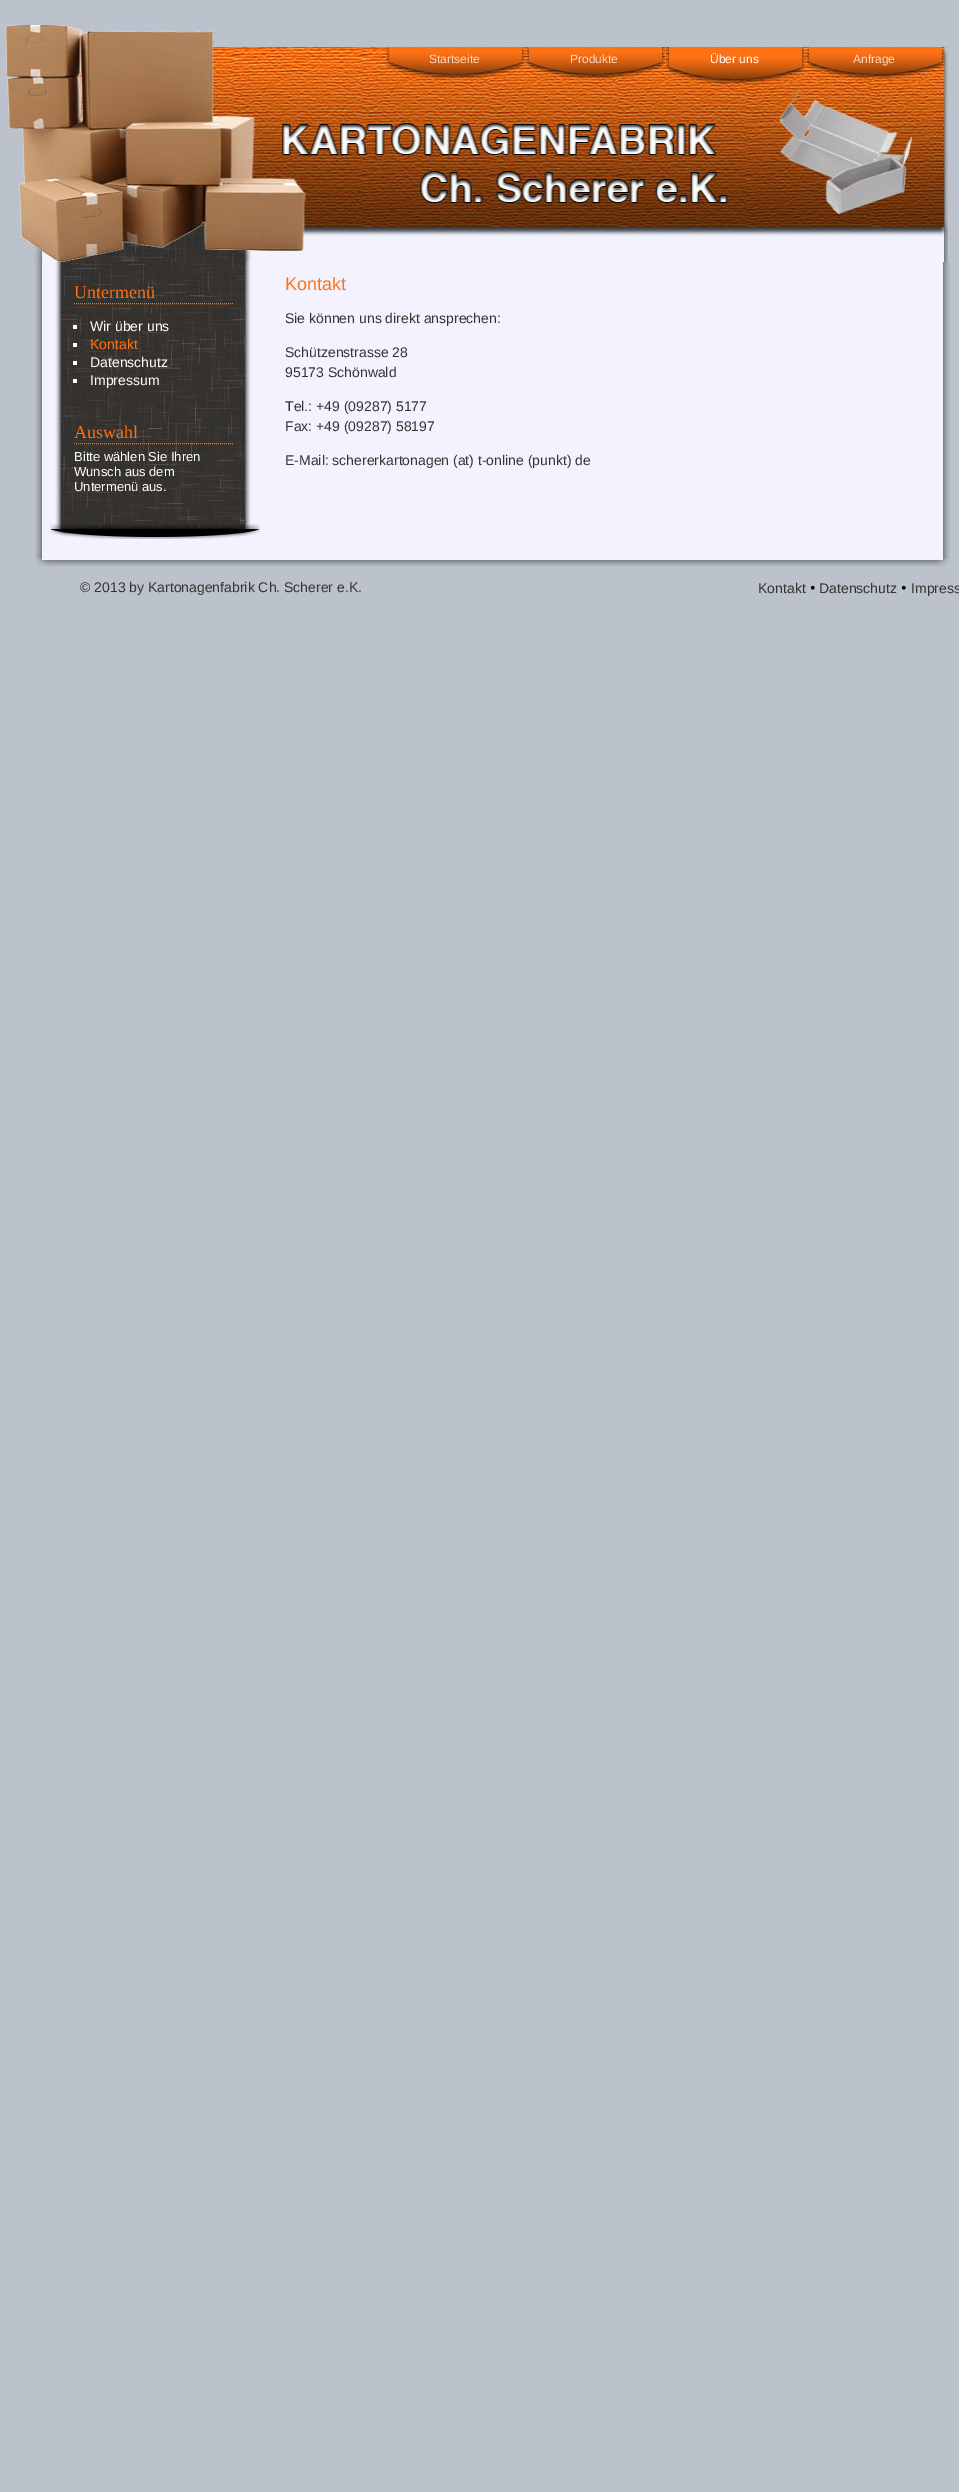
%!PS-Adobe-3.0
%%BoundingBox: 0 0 959 2492
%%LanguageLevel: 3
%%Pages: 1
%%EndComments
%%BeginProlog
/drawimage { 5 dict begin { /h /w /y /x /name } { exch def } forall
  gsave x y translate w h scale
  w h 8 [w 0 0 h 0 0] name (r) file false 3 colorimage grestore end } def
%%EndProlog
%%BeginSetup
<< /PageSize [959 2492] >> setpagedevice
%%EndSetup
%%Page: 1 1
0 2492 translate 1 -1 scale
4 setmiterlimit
0.733 0.761 0.8 setrgbcolor
0 0 959 2492 rectfill
(images/1.raw) 5 25 943 237 drawimage
(images/2.raw) 385 47 140 33 drawimage
(images/3.raw) 525 47 140 33 drawimage
(images/4.raw) 665 47 140 38 drawimage
(images/5.raw) 805 47 140 33 drawimage
(images/6.raw) 35 262 915 297 drawimage
(images/7.raw) 55 262 196 262 drawimage
1 0.447 0.078 setrgbcolor
[1 1] 0 setdash
newpath 74 303.5 moveto 234 303.5 lineto stroke
1 setgray
73 325 4 4 rectfill
73 343 4 4 rectfill
73 361 4 4 rectfill
73 379 4 4 rectfill
1 0.447 0.078 setrgbcolor
newpath 74 443.5 moveto 234 443.5 lineto stroke
(images/8.raw) 50 524 210 15 drawimage
(images/9.raw) 36 559 913 8 drawimage
/LiberationSans-Regular [12 0 0 -12 0 0] selectfont
1 0.851 0.749 setrgbcolor
429 63 moveto (Startseite) show
570 63 moveto (Produkte) show
1 setgray
710 63 moveto (Über uns) show
1 0.851 0.749 setrgbcolor
853 63 moveto (Anfrage) show
/LiberationSerif-Regular [18 0 0 -18 0 0] selectfont
1 0.447 0.078 setrgbcolor
74 298 moveto (Untermenü) show
/LiberationSans-Regular [14 0 0 -14 0 0] selectfont
1 setgray
90 331 moveto (Wir über uns) show
1 0.447 0.078 setrgbcolor
90 349 moveto (Kontakt) show
1 setgray
90 367 moveto (Datenschutz) show
90 385 moveto (Impressum) show
/LiberationSerif-Regular [18 0 0 -18 0 0] selectfont
1 0.447 0.078 setrgbcolor
74 438 moveto (Auswahl) show
/LiberationSans-Regular [13 0 0 -13 0 0] selectfont
1 setgray
74 461 moveto (Bitte wählen Sie Ihren) show
74 476 moveto (Wunsch aus dem) show
74 491 moveto (Untermenü aus.) show
/LiberationSans-Regular [18 0 0 -18 0 0] selectfont
1 0.447 0.078 setrgbcolor
285 290 moveto (Kontakt) show
/LiberationSans-Regular [14 0 0 -14 0 0] selectfont
0.212 0.204 0.196 setrgbcolor
285 323 moveto (Sie können uns direkt ansprechen:) show
285 357 moveto (Schützenstrasse 28) show
285 377 moveto (95173 Schönwald) show
285 411 moveto (Tel.: +49 \(09287\) 5177) show
285 431 moveto (Fax: +49 \(09287\) 58197) show
285 465 moveto (E-Mail: schererkartonagen \(at\) t-online \(punkt\) de) show
80 592 moveto (© 2013 by Kartonagenfabrik Ch. Scherer e.K.) show
758 593 moveto (Kontakt) show
/LiberationSerif-Regular [16 0 0 -16 0 0] selectfont
0 setgray
810 593 moveto (•) show
/LiberationSans-Regular [14 0 0 -14 0 0] selectfont
0.212 0.204 0.196 setrgbcolor
819 593 moveto (Datenschutz) show
/LiberationSerif-Regular [16 0 0 -16 0 0] selectfont
0 setgray
901 593 moveto (•) show
/LiberationSans-Regular [14 0 0 -14 0 0] selectfont
0.212 0.204 0.196 setrgbcolor
911 593 moveto (Impress) show
showpage
%%EOF
